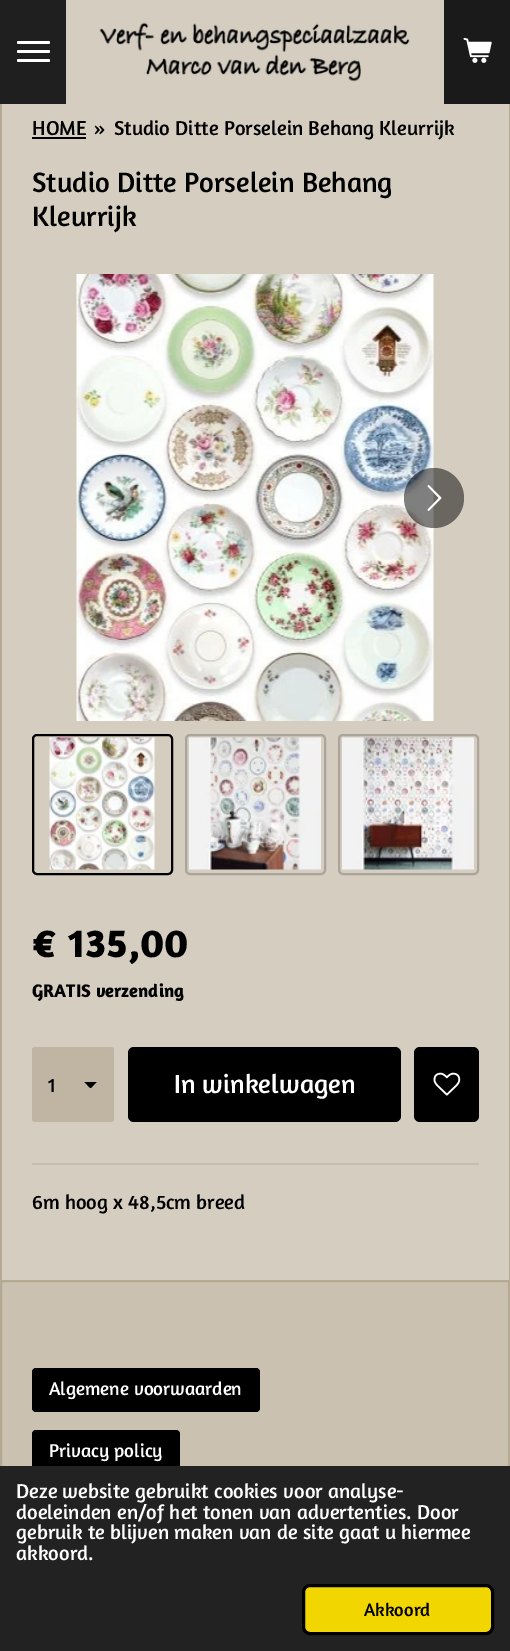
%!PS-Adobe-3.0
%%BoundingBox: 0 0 510 1651
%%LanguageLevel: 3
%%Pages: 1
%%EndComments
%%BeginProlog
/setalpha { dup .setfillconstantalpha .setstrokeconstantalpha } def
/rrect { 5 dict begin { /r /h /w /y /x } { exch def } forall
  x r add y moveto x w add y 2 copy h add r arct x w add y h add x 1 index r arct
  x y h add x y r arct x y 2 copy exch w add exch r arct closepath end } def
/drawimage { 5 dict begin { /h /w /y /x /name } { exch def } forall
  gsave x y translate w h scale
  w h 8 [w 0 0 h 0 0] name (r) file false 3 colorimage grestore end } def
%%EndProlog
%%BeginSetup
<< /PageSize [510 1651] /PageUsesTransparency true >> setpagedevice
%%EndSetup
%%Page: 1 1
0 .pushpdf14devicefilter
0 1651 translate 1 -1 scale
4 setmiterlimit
0.831 0.804 0.753 setrgbcolor
0 0 510 1651 rectfill
0.122 setgray
0 0 66 104 rectfill
1 setgray
17 50 33 3 1.5 rrect fill
17 41 33 3 1.5 rrect fill
17 59 33 3 1.5 rrect fill
(images/1.raw) 99 22 311 60 drawimage
0.102 setgray
444 0 66 104 rectfill
(images/2.raw) 463 37 29 26 drawimage
0.71 0.663 0.576 setrgbcolor
509 104 1 1176 rectfill
0 104 2 1176 rectfill
0 setgray
32 137 54 2 rectfill
(images/3.raw) 76 274 358 447 drawimage
0.5 setalpha
newpath 434 498 30 0 360 arc closepath fill
1 setalpha
(images/4.raw) 427 485 15 26 drawimage
2 setlinewidth
33 735 139 139 4 rrect stroke
(images/5.raw) 49 737 106 133 drawimage
0.667 0.643 0.604 setrgbcolor
186 735 139 139 4 rrect stroke
(images/6.raw) 189 737 132 133 drawimage
339 735 139 139 4 rrect stroke
(images/7.raw) 342 737 132 133 drawimage
0.749 0.71 0.635 setrgbcolor
32 1047 82 75 3 rrect fill
gsave
84 1082 14 6 rectclip
0 setgray
newpath 90.5 1088.5 moveto 84 1081.5 lineto 97 1081.5 lineto closepath fill
grestore
0 setgray
128 1047 273 75 6 rrect fill
414 1047 65 75 6 rrect fill
(images/8.raw) 433 1072 28 24 drawimage
0.773 0.749 0.702 setrgbcolor
32 1163 447 2 rectfill
0.792 0.757 0.694 setrgbcolor
2 1282 506 184 rectfill
0.71 0.663 0.576 setrgbcolor
1 1281 508 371 rectstroke
0 setgray
32 1368 228 44 4 rrect fill
32 1430 148 42 4 rrect fill
0.133 setgray
0 1466 510 185 rectfill
0.945 0.839 0 setrgbcolor
303.5 1585.5 189 48 6.5 rrect gsave fill grestore
0 setgray
3 setlinewidth
stroke
/Amaranth-Regular [20.55 0 0 -20.55 0 0] selectfont
32 135 moveto (HOME) show
94 135 moveto (») show
114 135 moveto (Studio Ditte Porselein Behang Kleurrijk) show
/Amaranth-Regular [28.5 0 0 -28.5 0 0] selectfont
32 192 moveto (Studio Ditte Porselein Behang) show
32 226 moveto (Kleurrijk) show
/Amaranth-Bold [41 0 0 -41 0 0] selectfont
32 957 moveto (€ 135,00) show
/Amaranth-Bold [18.5 0 0 -18.5 0 0] selectfont
32 997 moveto (GRATIS verzending) show
/Amaranth-Regular [20.55 0 0 -20.55 0 0] selectfont
48 1092 moveto (1) show
/Amaranth-Regular [26.75 0 0 -26.75 0 0] selectfont
1 setgray
174 1093 moveto (In winkelwagen) show
/Amaranth-Regular [20.55 0 0 -20.55 0 0] selectfont
0 setgray
32 1209 moveto (6m hoog x 48,5cm breed) show
/Amaranth-Regular [19 0 0 -19 0 0] selectfont
1 setgray
49 1395 moveto (Algemene voorwaarden) show
49 1457 moveto (Privacy policy) show
/Amaranth-Regular [20.55 0 0 -20.55 0 0] selectfont
16 1498 moveto (Deze website gebruikt cookies voor analyse-) show
16 1519 moveto (doeleinden en/of het tonen van advertenties. Door) show
16 1539 moveto (gebruik te blijven maken van de site gaat u hiermee) show
16 1560 moveto (akkoord.) show
/Amaranth-Regular [18.5 0 0 -18.5 0 0] selectfont
0 setgray
364 1616 moveto (Akkoord) show
.poppdf14devicefilter showpage
%%EOF
